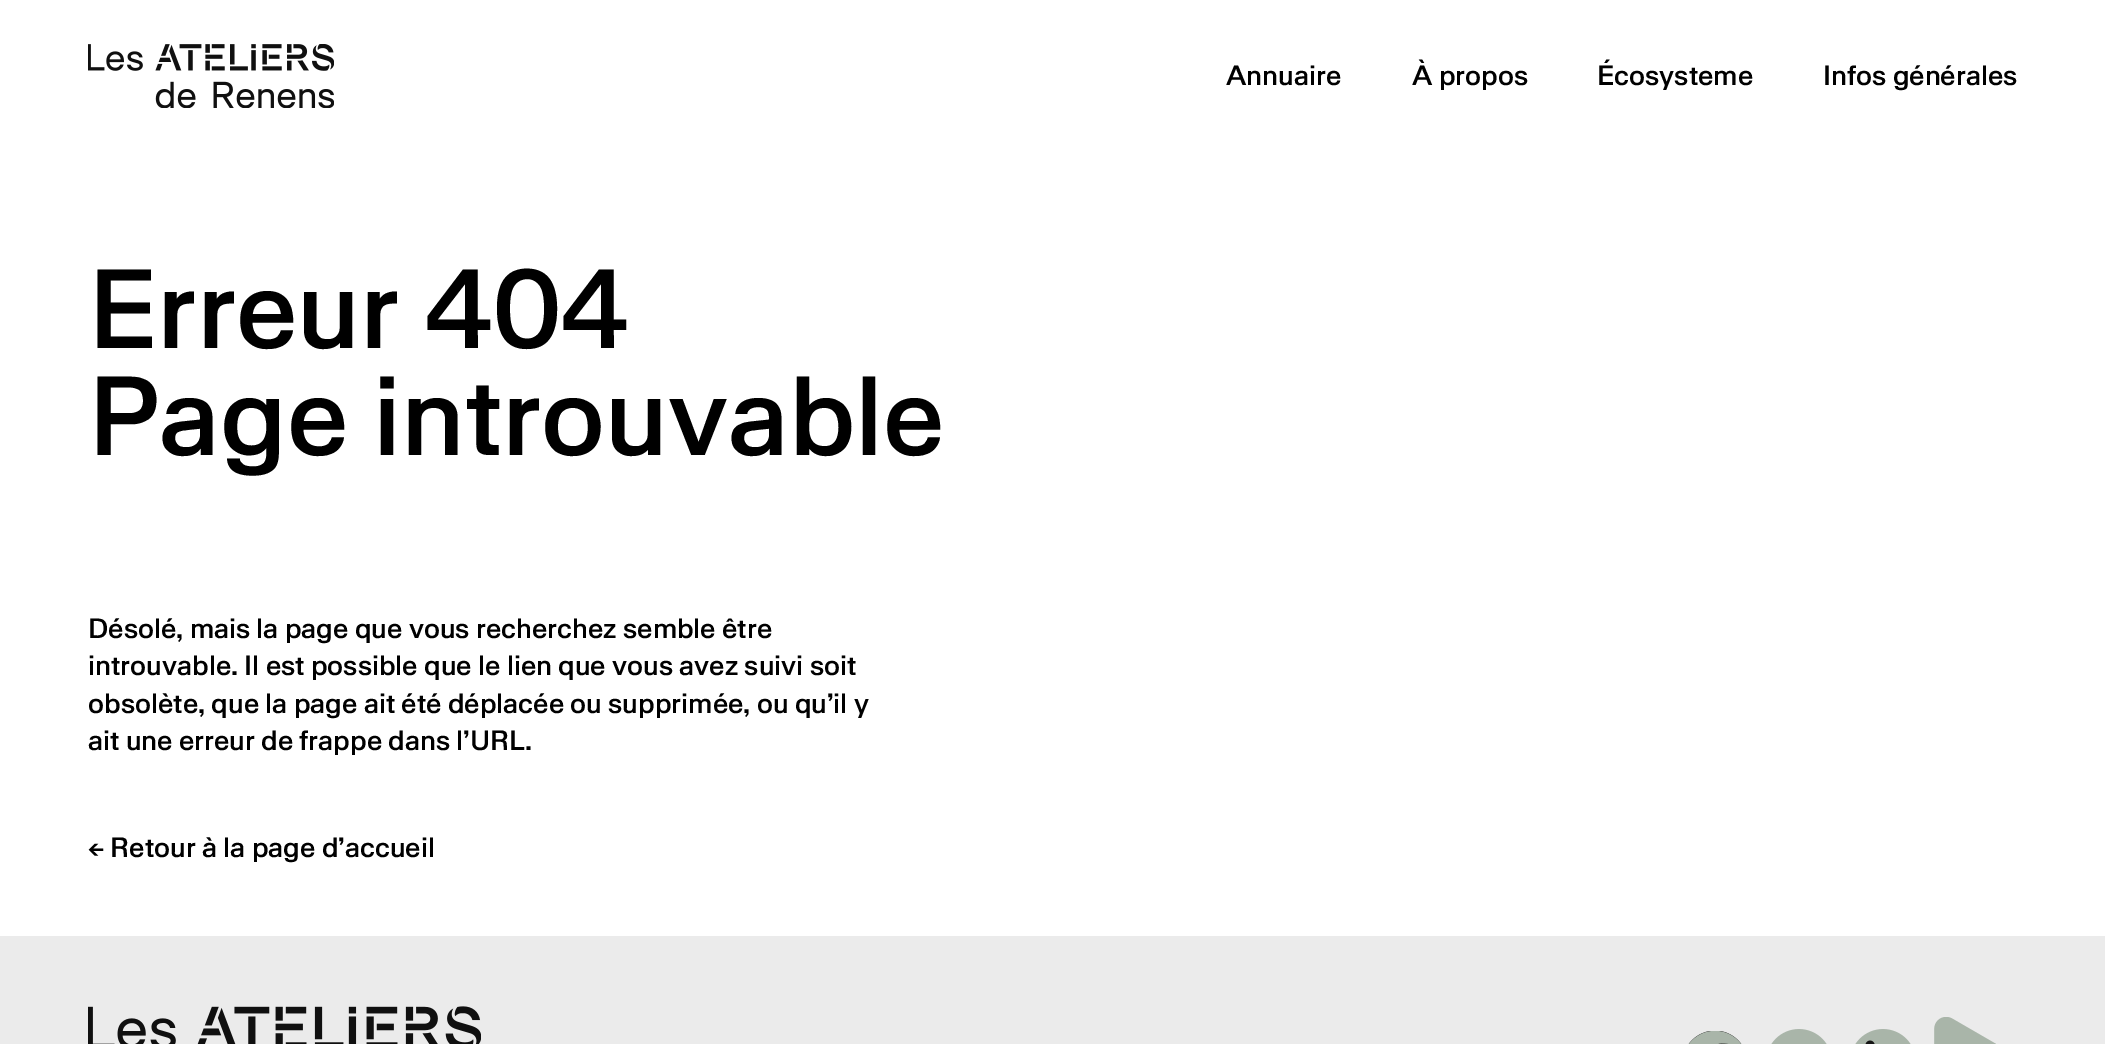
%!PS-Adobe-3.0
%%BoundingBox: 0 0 2105 1044
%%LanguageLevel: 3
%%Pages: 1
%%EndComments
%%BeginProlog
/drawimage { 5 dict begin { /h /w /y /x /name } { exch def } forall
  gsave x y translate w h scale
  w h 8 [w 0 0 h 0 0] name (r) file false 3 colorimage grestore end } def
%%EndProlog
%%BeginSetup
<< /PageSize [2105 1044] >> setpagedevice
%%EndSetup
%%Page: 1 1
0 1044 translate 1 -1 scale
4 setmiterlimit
1 setgray
0 0 2105 1044 rectfill
(images/1.raw) 88 44 246 64 drawimage
0.922 setgray
0 936 2105 108 rectfill
(images/2.raw) 88 1006 393 38 drawimage
(images/3.raw) 1688 1031 54 13 drawimage
(images/4.raw) 1771 1029 56 15 drawimage
(images/5.raw) 1855 1029 56 15 drawimage
(images/6.raw) 1934 1017 62 27 drawimage
/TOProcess-Medium [28 0 0 -28 0 0] selectfont
0 setgray
1226 85 moveto (Annuaire) show
1412 85 moveto (À propos) show
1597 85 moveto (Écosysteme) show
1823 85 moveto (Infos générales) show
/TOProcess-Medium [112 0 0 -112 0 0] selectfont
88 348 moveto (Erreur 404) show
88 455 moveto (Page introuvable) show
/TOProcess-Medium [28 0 0 -28 0 0] selectfont
88 638 moveto (Désolé, mais la page que vous recherchez semble être) show
88 675 moveto (introuvable. Il est possible que le lien que vous avez suivi soit) show
88 713 moveto (obsolète, que la page ait été déplacée ou supprimée, ou qu’il y) show
88 750 moveto (ait une erreur de frappe dans l’URL.) show
88 857 moveto (← Retour à la page d’accueil) show
showpage
%%EOF
